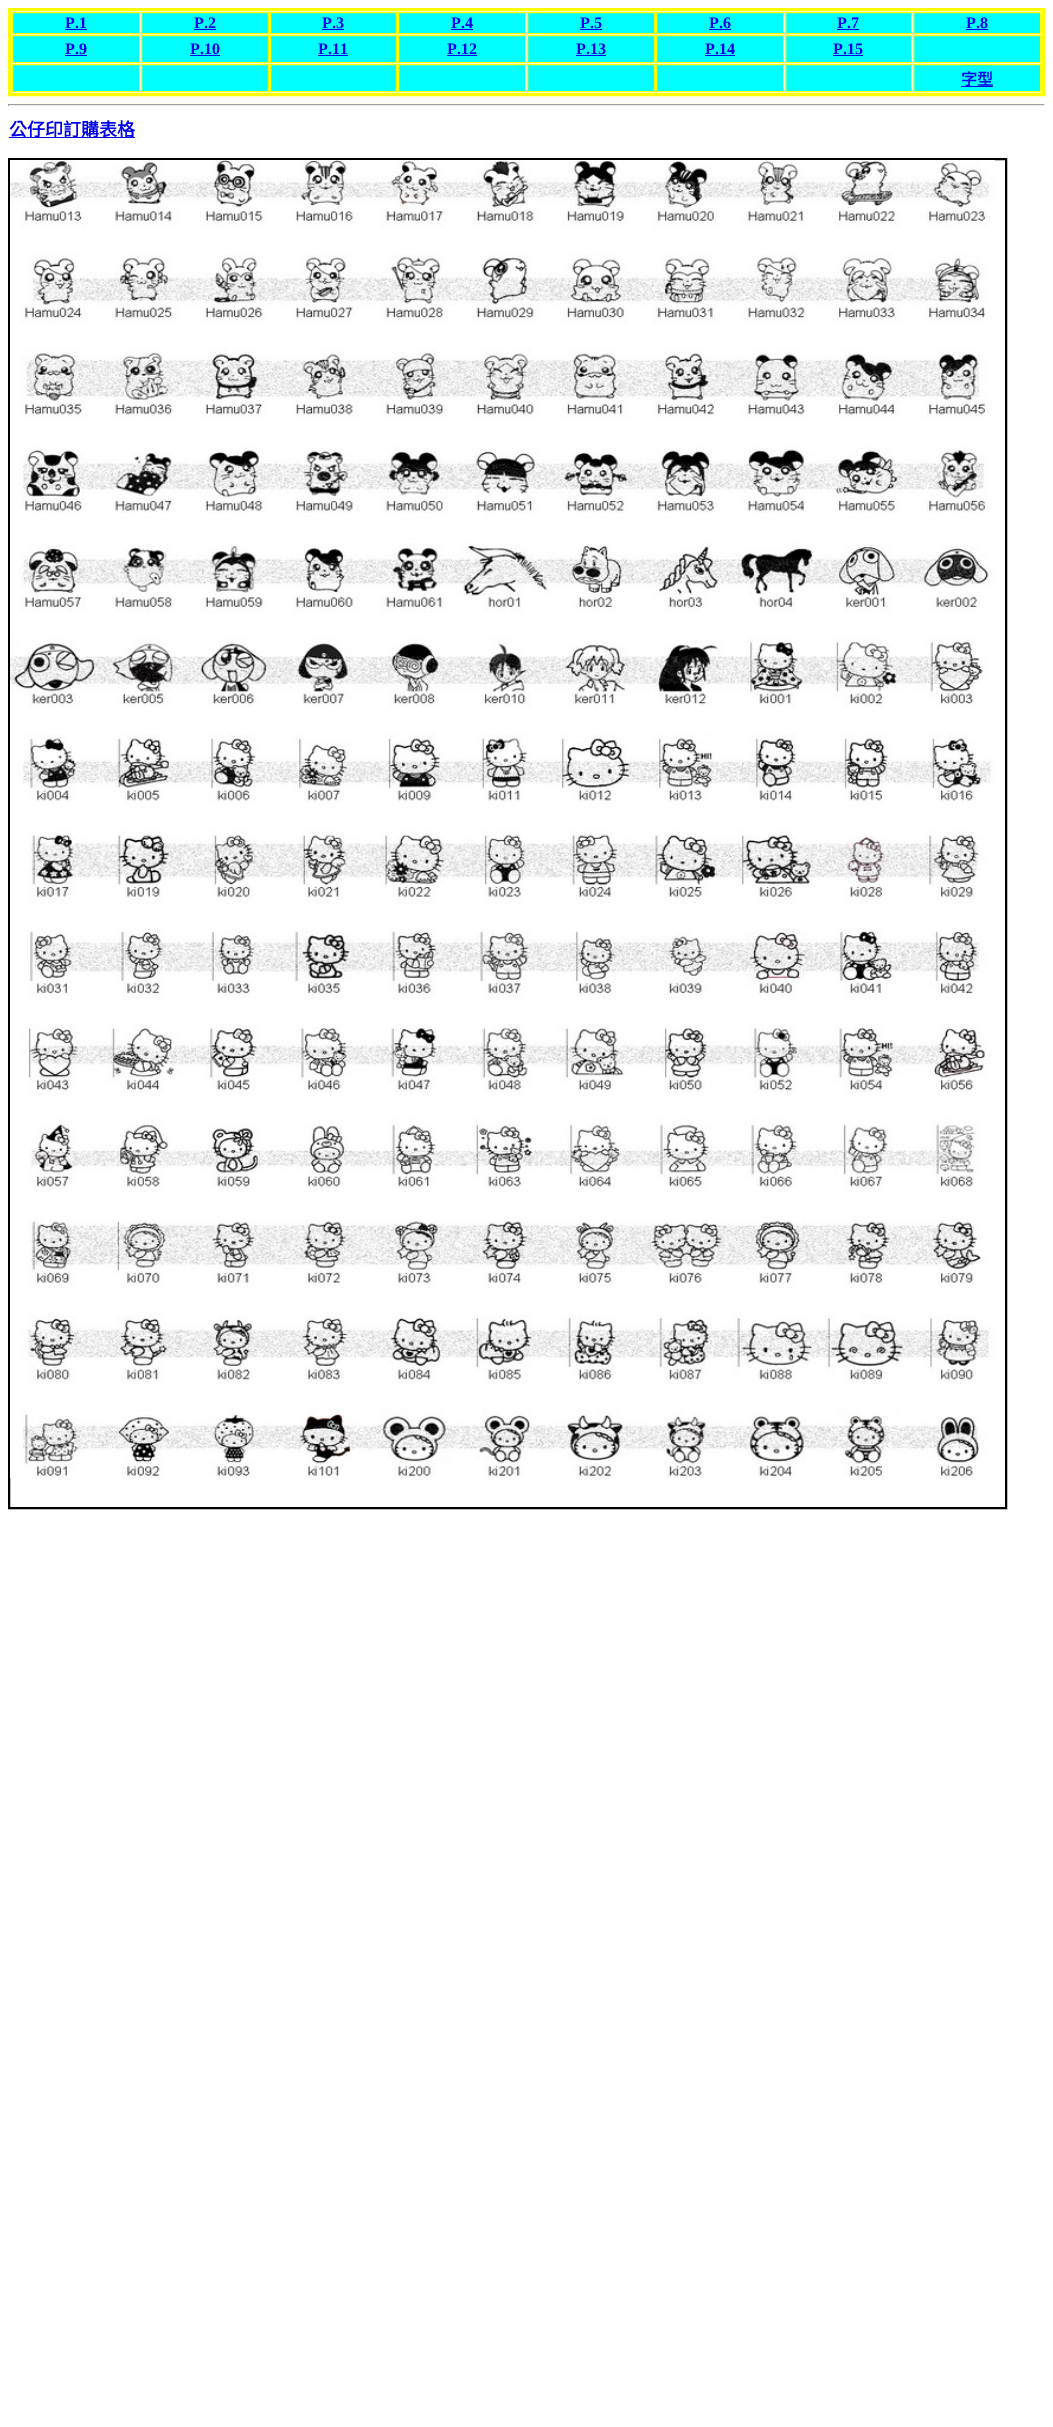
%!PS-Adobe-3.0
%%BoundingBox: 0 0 1053 2427
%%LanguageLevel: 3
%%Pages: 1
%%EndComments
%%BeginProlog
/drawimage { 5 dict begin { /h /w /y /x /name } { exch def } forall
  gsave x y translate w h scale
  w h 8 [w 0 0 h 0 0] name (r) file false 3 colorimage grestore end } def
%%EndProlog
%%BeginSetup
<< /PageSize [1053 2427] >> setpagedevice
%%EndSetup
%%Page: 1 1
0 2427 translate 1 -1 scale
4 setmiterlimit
1 setgray
0 0 1053 2427 rectfill
1 1 0 setrgbcolor
3 setlinewidth
9.5 9.5 1034 85 rectstroke
0 1 1 setrgbcolor
newpath 12.5 12.5 moveto 139.5 12.5 lineto 139.5 33.5 lineto 12.5 33.5 lineto closepath gsave fill grestore
1 1 0 setrgbcolor
1 setlinewidth
stroke
0 0 0.933 setrgbcolor
65 29 22 1 rectfill
0 1 1 setrgbcolor
newpath 141.5 12.5 moveto 268.5 12.5 lineto 268.5 33.5 lineto 141.5 33.5 lineto closepath gsave fill grestore
1 1 0 setrgbcolor
stroke
0 0 0.933 setrgbcolor
194 29 22 1 rectfill
0 1 1 setrgbcolor
newpath 270.5 12.5 moveto 396.5 12.5 lineto 396.5 33.5 lineto 270.5 33.5 lineto closepath gsave fill grestore
1 1 0 setrgbcolor
stroke
0 0 0.933 setrgbcolor
322 29 22 1 rectfill
0 1 1 setrgbcolor
newpath 398.5 12.5 moveto 525.5 12.5 lineto 525.5 33.5 lineto 398.5 33.5 lineto closepath gsave fill grestore
1 1 0 setrgbcolor
stroke
0 0 0.933 setrgbcolor
451 29 22 1 rectfill
0 1 1 setrgbcolor
newpath 527.5 12.5 moveto 654.5 12.5 lineto 654.5 33.5 lineto 527.5 33.5 lineto closepath gsave fill grestore
1 1 0 setrgbcolor
stroke
0 0 0.933 setrgbcolor
580 29 22 1 rectfill
0 1 1 setrgbcolor
newpath 656.5 12.5 moveto 783.5 12.5 lineto 783.5 33.5 lineto 656.5 33.5 lineto closepath gsave fill grestore
1 1 0 setrgbcolor
stroke
0 0 0.933 setrgbcolor
709 29 22 1 rectfill
0 1 1 setrgbcolor
newpath 785.5 12.5 moveto 911.5 12.5 lineto 911.5 33.5 lineto 785.5 33.5 lineto closepath gsave fill grestore
1 1 0 setrgbcolor
stroke
0 0 0.933 setrgbcolor
837 29 22 1 rectfill
0 1 1 setrgbcolor
newpath 913.5 12.5 moveto 1040.5 12.5 lineto 1040.5 33.5 lineto 913.5 33.5 lineto closepath gsave fill grestore
1 1 0 setrgbcolor
stroke
0 0 0.933 setrgbcolor
966 29 22 1 rectfill
0 1 1 setrgbcolor
newpath 12.5 35.5 moveto 139.5 35.5 lineto 139.5 62.5 lineto 12.5 62.5 lineto closepath gsave fill grestore
1 1 0 setrgbcolor
stroke
0 0 0.933 setrgbcolor
65 55 22 1 rectfill
0 1 1 setrgbcolor
newpath 141.5 35.5 moveto 268.5 35.5 lineto 268.5 62.5 lineto 141.5 62.5 lineto closepath gsave fill grestore
1 1 0 setrgbcolor
stroke
0 0 0.933 setrgbcolor
190 55 30 1 rectfill
0 1 1 setrgbcolor
newpath 270.5 35.5 moveto 396.5 35.5 lineto 396.5 62.5 lineto 270.5 62.5 lineto closepath gsave fill grestore
1 1 0 setrgbcolor
stroke
0 0 0.933 setrgbcolor
318 55 30 1 rectfill
0 1 1 setrgbcolor
newpath 398.5 35.5 moveto 525.5 35.5 lineto 525.5 62.5 lineto 398.5 62.5 lineto closepath gsave fill grestore
1 1 0 setrgbcolor
stroke
0 0 0.933 setrgbcolor
447 55 30 1 rectfill
0 1 1 setrgbcolor
newpath 527.5 35.5 moveto 654.5 35.5 lineto 654.5 62.5 lineto 527.5 62.5 lineto closepath gsave fill grestore
1 1 0 setrgbcolor
stroke
0 0 0.933 setrgbcolor
576 55 30 1 rectfill
0 1 1 setrgbcolor
newpath 656.5 35.5 moveto 783.5 35.5 lineto 783.5 62.5 lineto 656.5 62.5 lineto closepath gsave fill grestore
1 1 0 setrgbcolor
stroke
0 0 0.933 setrgbcolor
705 55 30 1 rectfill
0 1 1 setrgbcolor
newpath 785.5 35.5 moveto 911.5 35.5 lineto 911.5 62.5 lineto 785.5 62.5 lineto closepath gsave fill grestore
1 1 0 setrgbcolor
stroke
0 0 0.933 setrgbcolor
833 55 30 1 rectfill
0 1 1 setrgbcolor
newpath 913.5 35.5 moveto 1040.5 35.5 lineto 1040.5 62.5 lineto 913.5 62.5 lineto closepath gsave fill grestore
1 1 0 setrgbcolor
stroke
0 1 1 setrgbcolor
newpath 12.5 64.5 moveto 139.5 64.5 lineto 139.5 91.5 lineto 12.5 91.5 lineto closepath gsave fill grestore
1 1 0 setrgbcolor
stroke
0 1 1 setrgbcolor
newpath 141.5 64.5 moveto 268.5 64.5 lineto 268.5 91.5 lineto 141.5 91.5 lineto closepath gsave fill grestore
1 1 0 setrgbcolor
stroke
0 1 1 setrgbcolor
newpath 270.5 64.5 moveto 396.5 64.5 lineto 396.5 91.5 lineto 270.5 91.5 lineto closepath gsave fill grestore
1 1 0 setrgbcolor
stroke
0 1 1 setrgbcolor
newpath 398.5 64.5 moveto 525.5 64.5 lineto 525.5 91.5 lineto 398.5 91.5 lineto closepath gsave fill grestore
1 1 0 setrgbcolor
stroke
0 1 1 setrgbcolor
newpath 527.5 64.5 moveto 654.5 64.5 lineto 654.5 91.5 lineto 527.5 91.5 lineto closepath gsave fill grestore
1 1 0 setrgbcolor
stroke
0 1 1 setrgbcolor
newpath 656.5 64.5 moveto 783.5 64.5 lineto 783.5 91.5 lineto 656.5 91.5 lineto closepath gsave fill grestore
1 1 0 setrgbcolor
stroke
0 1 1 setrgbcolor
newpath 785.5 64.5 moveto 911.5 64.5 lineto 911.5 91.5 lineto 785.5 91.5 lineto closepath gsave fill grestore
1 1 0 setrgbcolor
stroke
0 1 1 setrgbcolor
newpath 913.5 64.5 moveto 1040.5 64.5 lineto 1040.5 91.5 lineto 913.5 91.5 lineto closepath gsave fill grestore
1 1 0 setrgbcolor
stroke
0 0 0.933 setrgbcolor
961 86 32 1 rectfill
0.624 setgray
8 104 1037 1 rectfill
0.933 setgray
1044 104 1 2 rectfill
8 105 1037 1 rectfill
0.624 setgray
8 104 1 2 rectfill
0 0 0.933 setrgbcolor
9 137 126 1 rectfill
0 setgray
2 setlinewidth
9 159 997 1349 rectstroke
(images/1.raw) 10 160 985 1318 drawimage
/LiberationSerif-Bold [16 0 0 -16 0 0] selectfont
0 0 0.933 setrgbcolor
65 28 moveto (P.1) show
194 28 moveto (P.2) show
322 28 moveto (P.3) show
451 28 moveto (P.4) show
580 28 moveto (P.5) show
709 28 moveto (P.6) show
837 28 moveto (P.7) show
966 28 moveto (P.8) show
65 54 moveto (P.9) show
190 54 moveto (P.10) show
318 54 moveto (P.11) show
447 54 moveto (P.12) show
576 54 moveto (P.13) show
705 54 moveto (P.14) show
833 54 moveto (P.15) show
/NotoSansCJKTC-Bold [16 0 0 -16 0 0] selectfont
961 85 moveto (字型) show
/NotoSansCJKTC-Bold [18 0 0 -18 0 0] selectfont
9 136 moveto (公仔印訂購表格) show
showpage
%%EOF
